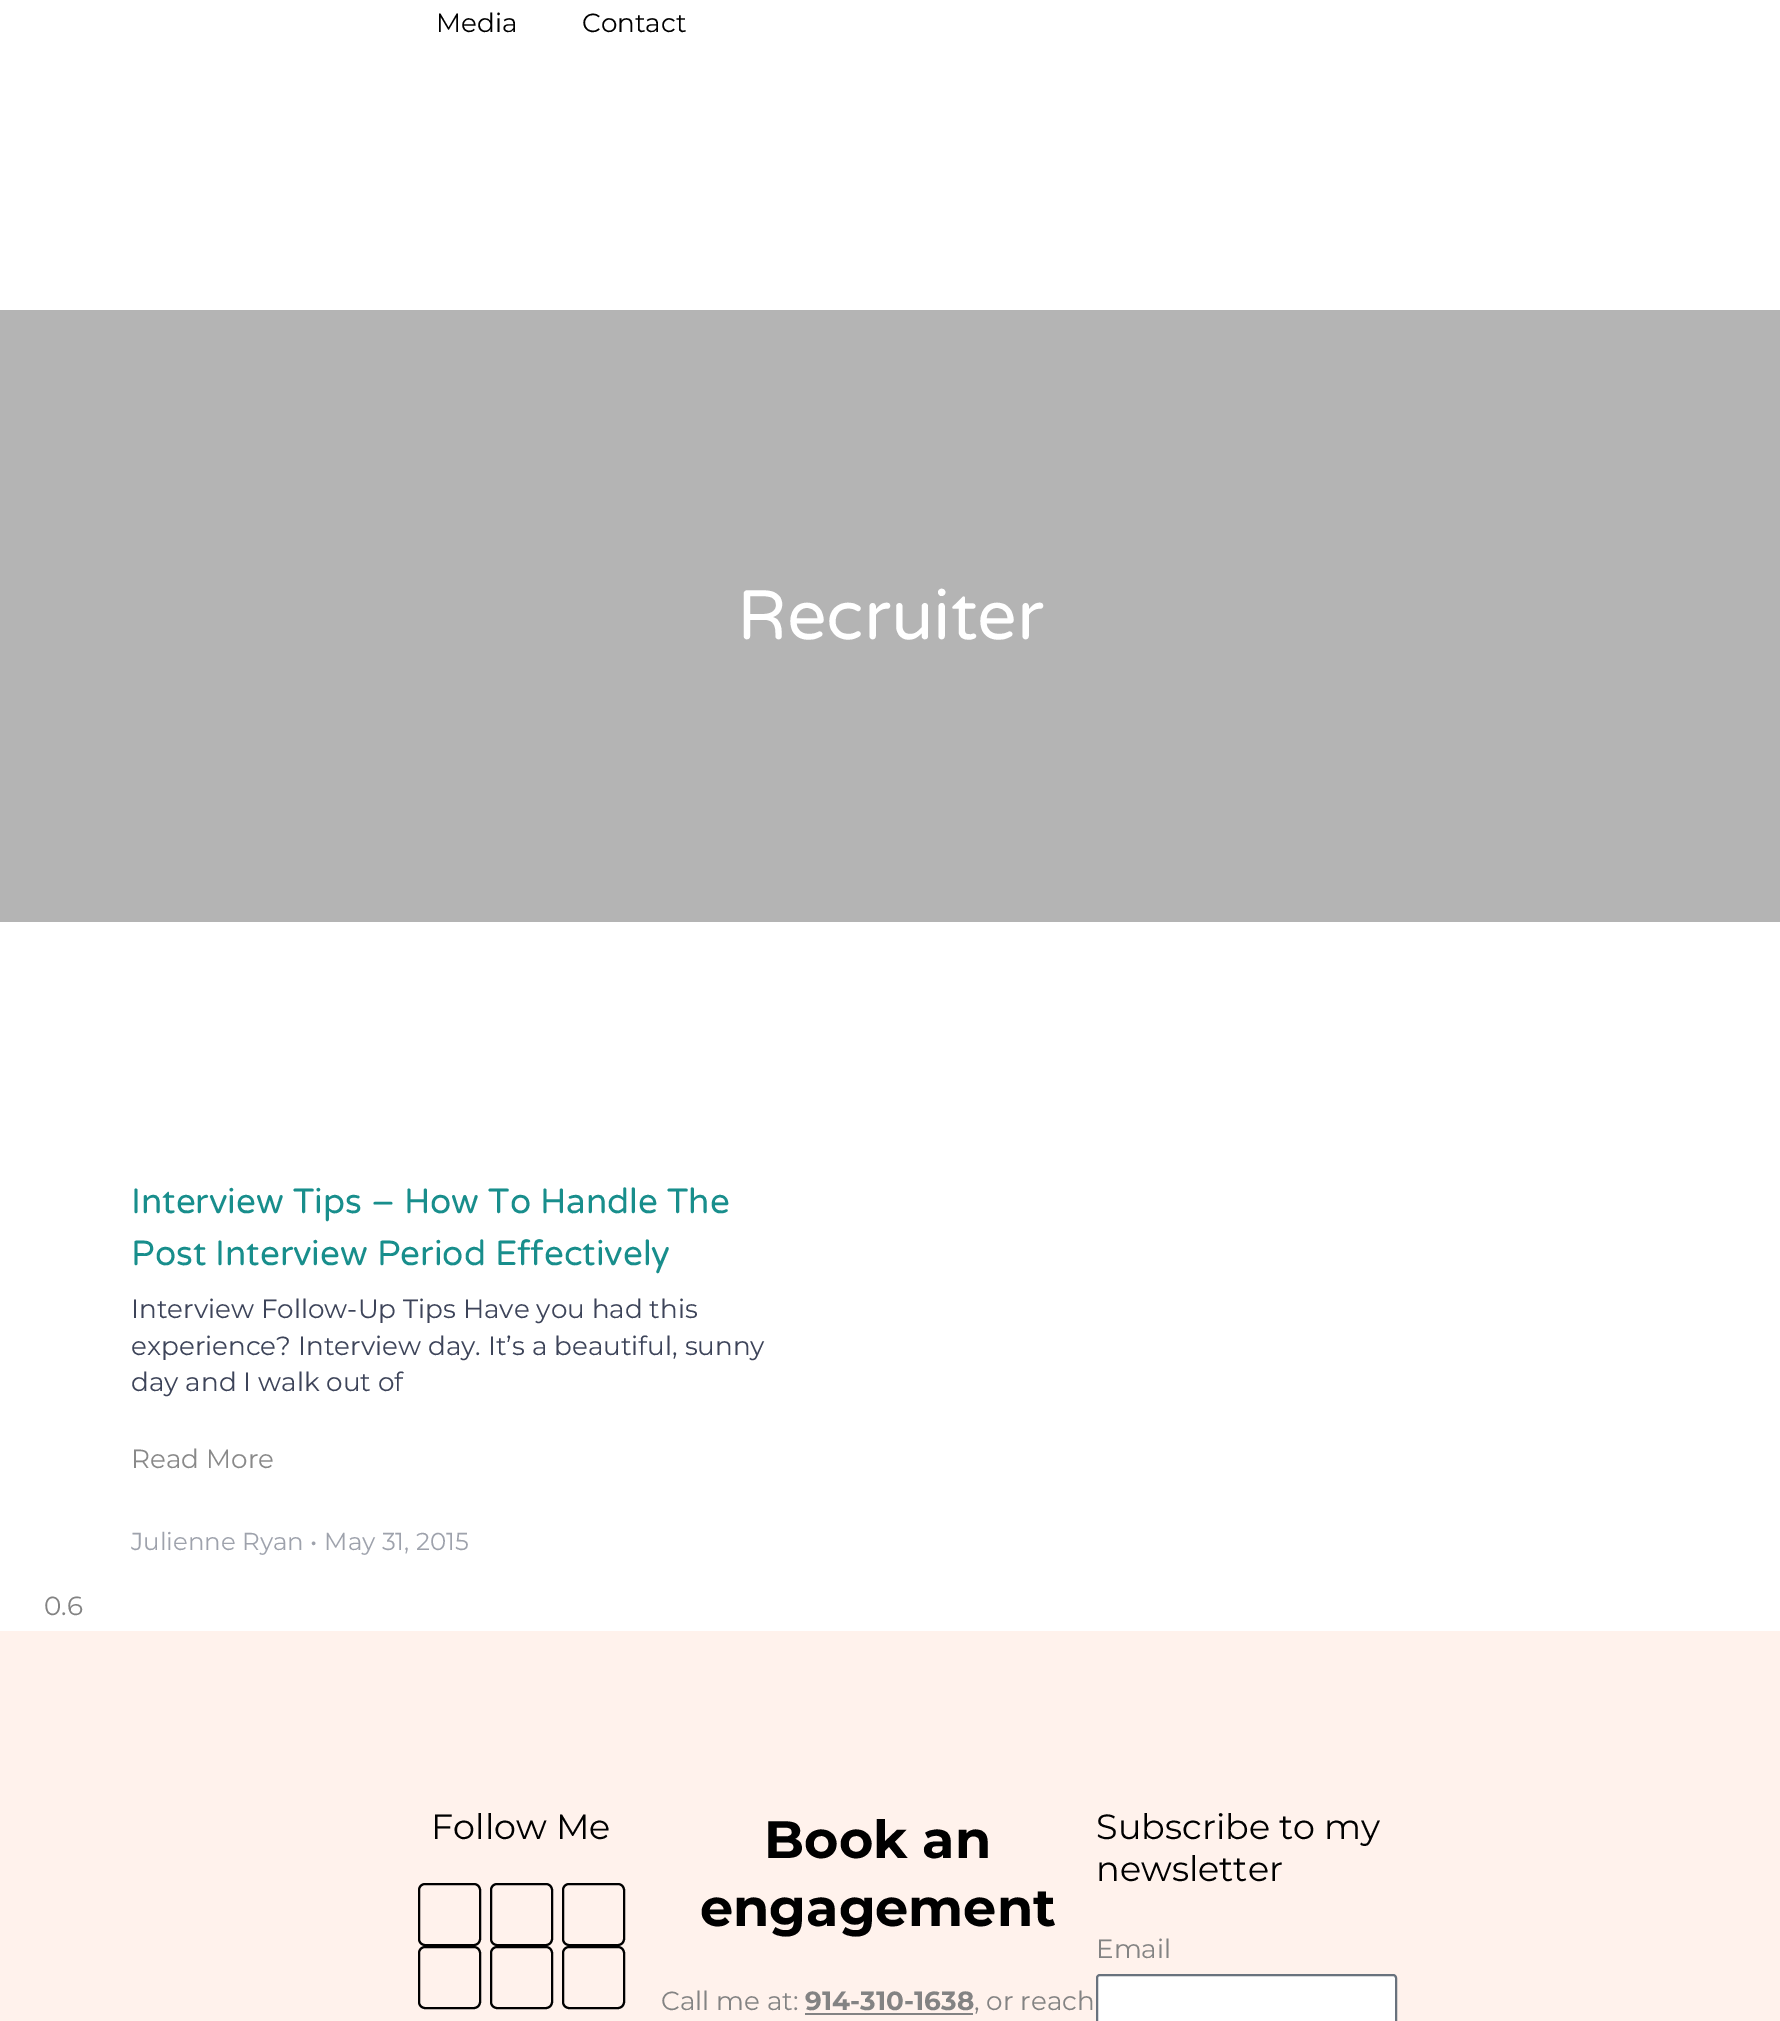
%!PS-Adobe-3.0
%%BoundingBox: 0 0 1780 2021
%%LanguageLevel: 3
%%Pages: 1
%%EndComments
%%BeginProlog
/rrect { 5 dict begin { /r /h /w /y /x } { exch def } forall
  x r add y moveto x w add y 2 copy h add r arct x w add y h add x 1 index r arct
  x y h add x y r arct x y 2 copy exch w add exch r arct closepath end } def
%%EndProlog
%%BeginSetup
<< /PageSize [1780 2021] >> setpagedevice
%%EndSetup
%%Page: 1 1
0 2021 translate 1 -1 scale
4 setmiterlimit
1 setgray
0 0 1780 2021 rectfill
0.706 setgray
0 310 1780 612 rectfill
1 0.949 0.925 setrgbcolor
0 1631 1780 390 rectfill
0 setgray
2 setlinewidth
419 1884 61 61 6 rrect stroke
491 1884 61 61 6 rrect stroke
563 1884 61 61 6 rrect stroke
419 1947 61 61 6 rrect stroke
491 1947 61 61 6 rrect stroke
563 1947 61 61 6 rrect stroke
0.514 setgray
805 2013 168 2 rectfill
1 setgray
1097 1975 299 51 3 rrect gsave fill grestore
0.412 0.447 0.49 setrgbcolor
stroke
/Montserrat-Regular [26.25 0 0 -26.25 0 0] selectfont
0 setgray
436 32 moveto (Media) show
582 32 moveto (Contact) show
/VarelaRound-Regular [70 0 0 -70 0 0] selectfont
1 setgray
737 639 moveto (Recruiter) show
/VarelaRound-Regular [35 0 0 -35 0 0] selectfont
0.094 0.557 0.549 setrgbcolor
131 1213 moveto (Interview Tips – How To Handle The) show
131 1265 moveto (Post Interview Period Effectively) show
/Montserrat-Regular [26.25 0 0 -26.25 0 0] selectfont
0.239 0.267 0.349 setrgbcolor
131 1318 moveto (Interview Follow-Up Tips Have you had this) show
131 1355 moveto (experience? Interview day. It’s a beautiful, sunny) show
131 1391 moveto (day and I walk out of) show
0.537 setgray
131 1468 moveto (Read More) show
/Montserrat-Regular [24.5 0 0 -24.5 0 0] selectfont
0.62 0.635 0.675 setrgbcolor
131 1550 moveto (Julienne Ryan • May 31, 2015) show
/Montserrat-Regular [26.25 0 0 -26.25 0 0] selectfont
0.514 setgray
44 1615 moveto (0.6) show
/Montserrat-Regular [35 0 0 -35 0 0] selectfont
0 setgray
431 1839 moveto (Follow Me) show
/Montserrat-Bold [52.5 0 0 -52.5 0 0] selectfont
764 1858 moveto (Book an) show
700 1926 moveto (engagement) show
/Montserrat-Regular [26.25 0 0 -26.25 0 0] selectfont
0.514 setgray
661 2010 moveto (Call me at:) show
/Montserrat-Bold [26.25 0 0 -26.25 0 0] selectfont
805 2010 moveto (914-310-1638) show
/Montserrat-Regular [26.25 0 0 -26.25 0 0] selectfont
974 2010 moveto (, or reach) show
/Montserrat-Regular [35 0 0 -35 0 0] selectfont
0 setgray
1096 1839 moveto (Subscribe to my) show
1096 1881 moveto (newsletter) show
/Montserrat-Regular [26.25 0 0 -26.25 0 0] selectfont
0.514 setgray
1096 1958 moveto (Email) show
showpage
%%EOF
